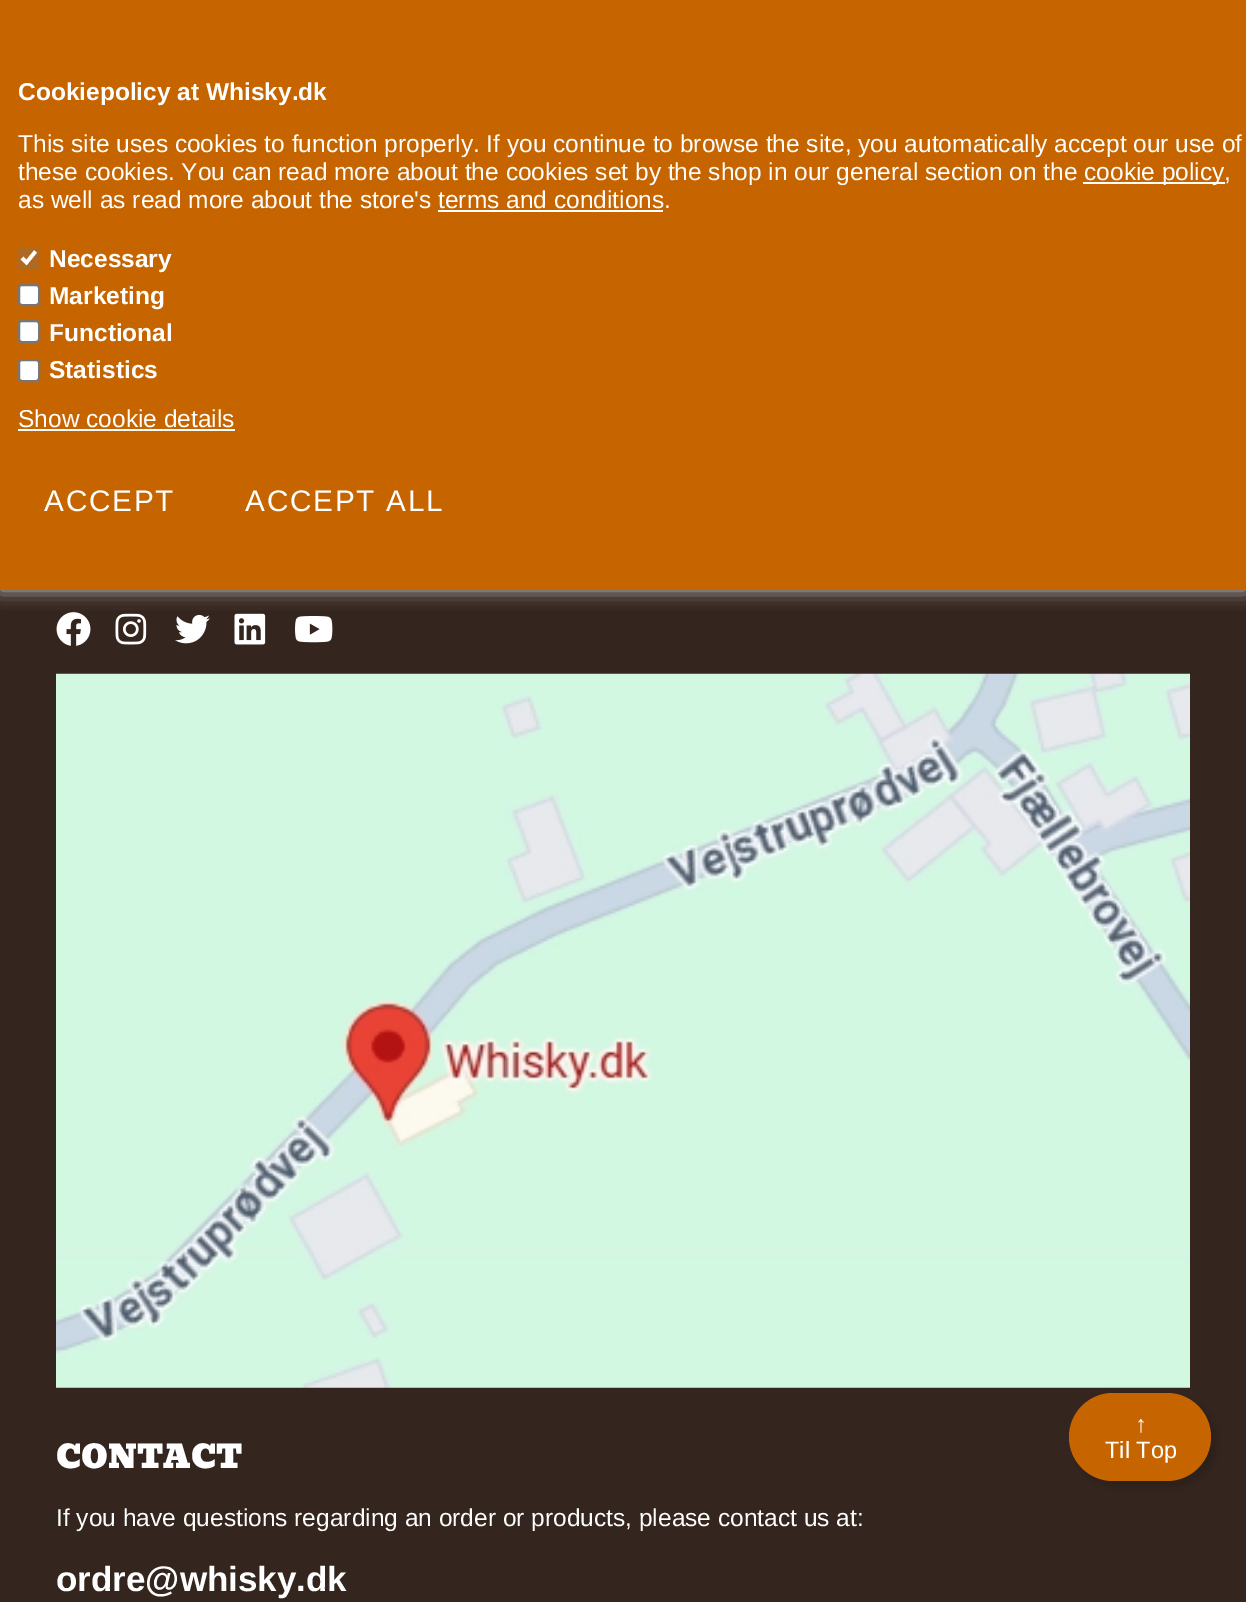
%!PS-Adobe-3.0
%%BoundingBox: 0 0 1246 1602
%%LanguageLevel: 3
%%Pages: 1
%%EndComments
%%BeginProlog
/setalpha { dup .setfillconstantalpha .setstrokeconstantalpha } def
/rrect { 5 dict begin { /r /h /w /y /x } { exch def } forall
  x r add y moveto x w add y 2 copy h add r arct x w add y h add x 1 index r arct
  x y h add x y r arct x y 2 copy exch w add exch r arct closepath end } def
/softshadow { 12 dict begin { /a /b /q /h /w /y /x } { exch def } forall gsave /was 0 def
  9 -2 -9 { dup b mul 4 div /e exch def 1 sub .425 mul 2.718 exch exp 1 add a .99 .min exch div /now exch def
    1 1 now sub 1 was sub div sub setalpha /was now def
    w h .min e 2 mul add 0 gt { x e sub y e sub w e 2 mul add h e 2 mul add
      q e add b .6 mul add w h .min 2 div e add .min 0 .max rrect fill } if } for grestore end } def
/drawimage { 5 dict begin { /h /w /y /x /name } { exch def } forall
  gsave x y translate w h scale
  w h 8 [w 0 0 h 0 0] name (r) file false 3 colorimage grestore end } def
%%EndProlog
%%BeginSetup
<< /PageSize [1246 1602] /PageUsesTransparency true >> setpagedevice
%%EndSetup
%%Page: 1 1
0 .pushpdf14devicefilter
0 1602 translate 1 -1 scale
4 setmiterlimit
0.204 0.149 0.118 setrgbcolor
0 0 1246 1602 rectfill
(images/1.raw) 56 612 35 34 drawimage
(images/2.raw) 115 613 32 32 drawimage
(images/3.raw) 175 614 35 30 drawimage
(images/4.raw) 234 613 32 32 drawimage
(images/5.raw) 295 616 38 27 drawimage
0.8 setgray
0 0 1246 590 0 9 1 softshadow
0.776 0.396 0 setrgbcolor
0 0 1246 590 rectfill
1 setgray
1083 182 142 2 rectfill
438 210 225 2 rectfill
0.682 0.416 0.137 setrgbcolor
18 247 22 23 4 rrect fill
1 setgray
3.6 setlinewidth
newpath 22 258 moveto 26.5 262.5 lineto 35.5 251.5 lineto stroke
19 285 20 20 3 rrect gsave fill grestore
0.463 setgray
2 setlinewidth
stroke
1 setgray
19 321 20 21 3 rrect gsave fill grestore
0.463 setgray
stroke
1 setgray
19 360 20 21 3 rrect gsave fill grestore
0.463 setgray
stroke
1 setgray
18 429 217 2 rectfill
(images/6.raw) 56 673 1134 715 drawimage
0 setgray
1075 1398 141 88 44 5 0.2 softshadow
0.776 0.396 0 setrgbcolor
1069 1393 142 88 44 rrect fill
/LiberationSans-Bold [24.5 0 0 -24.5 0 0] selectfont
1 setgray
18 100 moveto (Cookiepolicy at Whisky.dk) show
/LiberationSans-Regular [24.5 0 0 -24.5 0 0] selectfont
18 152 moveto (This site uses cookies to function properly. If you continue to browse the site, you automatically accept our use of) show
18 180 moveto (these cookies. You can read more about the cookies set by the shop in our general section on the) show
1084 180 moveto (cookie policy,) show
18 208 moveto (as well as read more about the store's terms and conditions.) show
/LiberationSans-Bold [24.5 0 0 -24.5 0 0] selectfont
49 267 moveto (Necessary) show
49 304 moveto (Marketing) show
49 341 moveto (Functional) show
49 378 moveto (Statistics) show
/LiberationSans-Regular [24.5 0 0 -24.5 0 0] selectfont
18 427 moveto (Show cookie details) show
/LiberationSans-Regular [29.75 0 0 -29.75 0 0] selectfont
44 511 moveto 1.75 0 (ACCEPT) ashow
245 511 moveto 1.75 0 (ACCEPT ALL) ashow
/Bevan-Regular [31.5 0 0 -31.5 0 0] selectfont
56 1468 moveto (CONTACT) show
/LiberationSans-Regular [24.5 0 0 -24.5 0 0] selectfont
56 1526 moveto (If you have questions regarding an order or products, please contact us at:) show
/LiberationSans-Bold [35 0 0 -35 0 0] selectfont
56 1591 moveto (ordre@whisky.dk) show
/LiberationSans-Regular [23.5 0 0 -23.5 0 0] selectfont
1135 1432 moveto (↑) show
1105 1458 moveto (Til Top) show
.poppdf14devicefilter showpage
%%EOF
